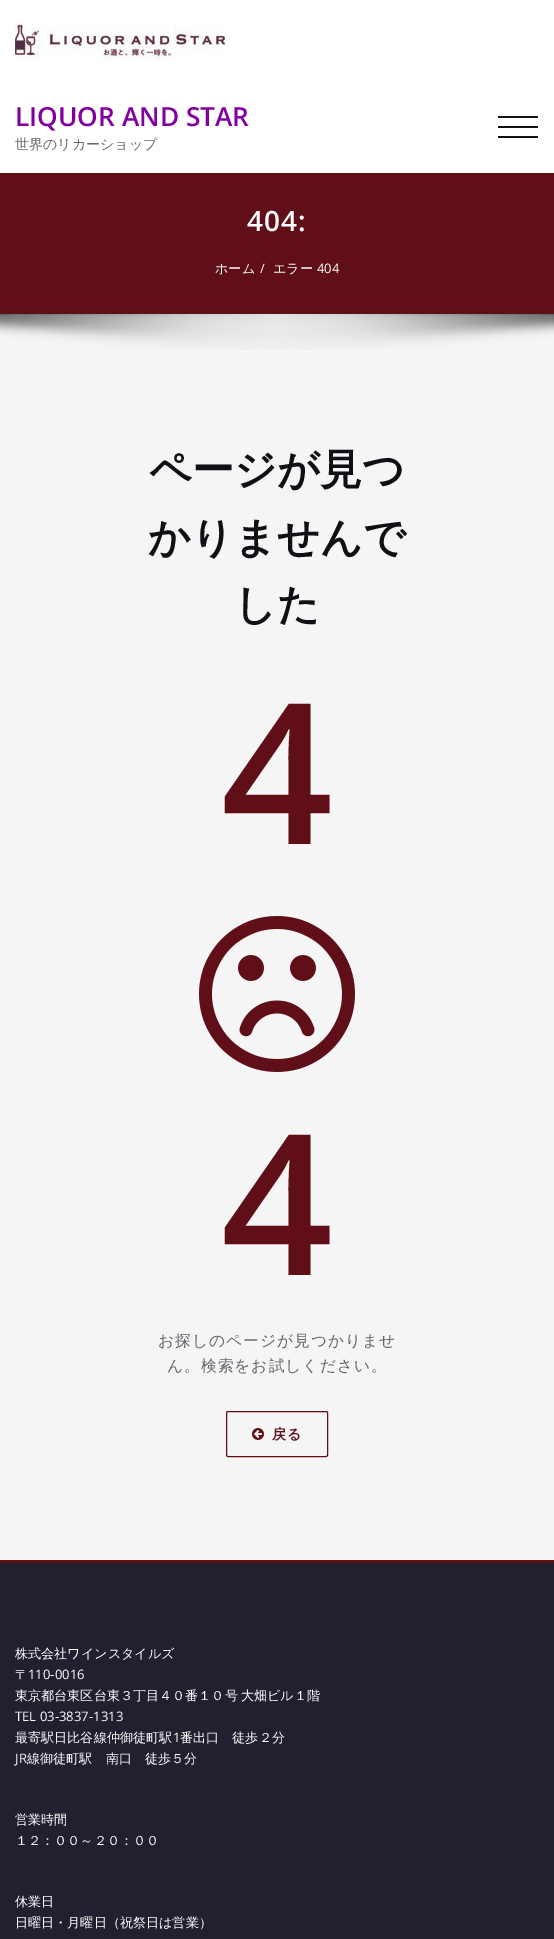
%!PS-Adobe-3.0
%%BoundingBox: 0 0 554 1939
%%LanguageLevel: 3
%%Pages: 1
%%EndComments
%%BeginProlog
/rrect { 5 dict begin { /r /h /w /y /x } { exch def } forall
  x r add y moveto x w add y 2 copy h add r arct x w add y h add x 1 index r arct
  x y h add x y r arct x y 2 copy exch w add exch r arct closepath end } def
/drawimage { 5 dict begin { /h /w /y /x /name } { exch def } forall
  gsave x y translate w h scale
  w h 8 [w 0 0 h 0 0] name (r) file false 3 colorimage grestore end } def
%%EndProlog
%%BeginSetup
<< /PageSize [554 1939] >> setpagedevice
%%EndSetup
%%Page: 1 1
0 1939 translate 1 -1 scale
4 setmiterlimit
0.961 setgray
0 0 554 1939 rectfill
1 setgray
0 0 554 173 rectfill
(images/1.raw) 15 20 210 40 drawimage
0.071 0.071 0.075 setrgbcolor
498 116 40 2 1 rrect fill
498 126 40 2 1 rrect fill
498 136 40 2 1 rrect fill
0.376 0.059 0.094 setrgbcolor
0 173 554 141 rectfill
(images/2.raw) 0 314 554 36 drawimage
(images/3.raw) 199 916 156 156 drawimage
226.5 1411.5 101 45 1.5 rrect stroke
(images/4.raw) 252 1428 12 12 drawimage
0.129 0.125 0.18 setrgbcolor
0 1563 554 376 rectfill
0.376 0.059 0.094 setrgbcolor
0 1560 554 3 rectfill
/OpenSans-SemiBold [26.25 0 0 -26.25 0 0] selectfont
0.514 0 0.627 setrgbcolor
15 126 moveto (LIQUOR AND STAR) show
/WenQuanYiZenHei-Medium [14 0 0 -14 0 0] selectfont
0.392 0.392 0.427 setrgbcolor
15 149 moveto (世界のリカーショップ) show
/OpenSans-SemiBold [28 0 0 -28 0 0] selectfont
1 setgray
247 231 moveto 1 0 (404:) ashow
/WenQuanYiZenHei-Medium [13.1 0 0 -13.1 0 0] selectfont
215 273 moveto (ホーム) show
/OpenSans-Regular [13.1 0 0 -13.1 0 0] selectfont
260 273 moveto (/) show
/WenQuanYiZenHei-Medium [13.1 0 0 -13.1 0 0] selectfont
273 273 moveto (エラー) show
/OpenSans-Regular [13.1 0 0 -13.1 0 0] selectfont
317 273 moveto (404) show
/WenQuanYiZenHei-Bold [42 0 0 -42 0 0] selectfont
0.059 0.059 0.086 setrgbcolor
149 484 moveto (ページが見つ) show
148 552 moveto (かりませんで) show
234 619 moveto (した) show
/OpenSans-SemiBold [196 0 0 -196 0 0] selectfont
0.376 0.059 0.094 setrgbcolor
221 844 moveto (4) show
221 1275 moveto (4) show
/WenQuanYiZenHei-Medium [15.75 0 0 -15.75 0 0] selectfont
0.392 0.392 0.427 setrgbcolor
158 1346 moveto 1 0 (お探しのページが見つかりませ) ashow
167 1371 moveto 1 0 (ん。検索をお試しください。) ashow
/WenQuanYiZenHei-Bold [14 0 0 -14 0 0] selectfont
0.376 0.059 0.094 setrgbcolor
272 1439 moveto 1 0 (戻る) ashow
/WenQuanYiZenHei-Medium [13.1 0 0 -13.1 0 0] selectfont
1 setgray
15 1658 moveto (株式会社ワインスタイルズ) show
15 1679 moveto (〒) show
/OpenSans-Regular [13.1 0 0 -13.1 0 0] selectfont
28 1679 moveto (110-0016) show
/WenQuanYiZenHei-Medium [13.1 0 0 -13.1 0 0] selectfont
15 1700 moveto -1 0 32 (東京都台東区台東３丁目４０番１０号 大畑ビル１階) widthshow
/OpenSans-Regular [13.1 0 0 -13.1 0 0] selectfont
15 1721 moveto (TEL 03-3837-1313) show
/WenQuanYiZenHei-Medium [13.1 0 0 -13.1 0 0] selectfont
15 1742 moveto (最寄駅日比谷線仲御徒町駅) show
/OpenSans-Regular [13.1 0 0 -13.1 0 0] selectfont
173 1742 moveto (1) show
/WenQuanYiZenHei-Medium [13.1 0 0 -13.1 0 0] selectfont
180 1742 moveto (番出口　徒歩２分) show
/OpenSans-Regular [13.1 0 0 -13.1 0 0] selectfont
15 1763 moveto (JR) show
/WenQuanYiZenHei-Medium [13.1 0 0 -13.1 0 0] selectfont
27 1763 moveto (線御徒町駅　南口　徒歩５分) show
15 1824 moveto (営業時間) show
15 1845 moveto (１２：００～２０：００) show
15 1906 moveto (休業日) show
15 1927 moveto (日曜日・月曜日（祝祭日は営業）) show
showpage
%%EOF
